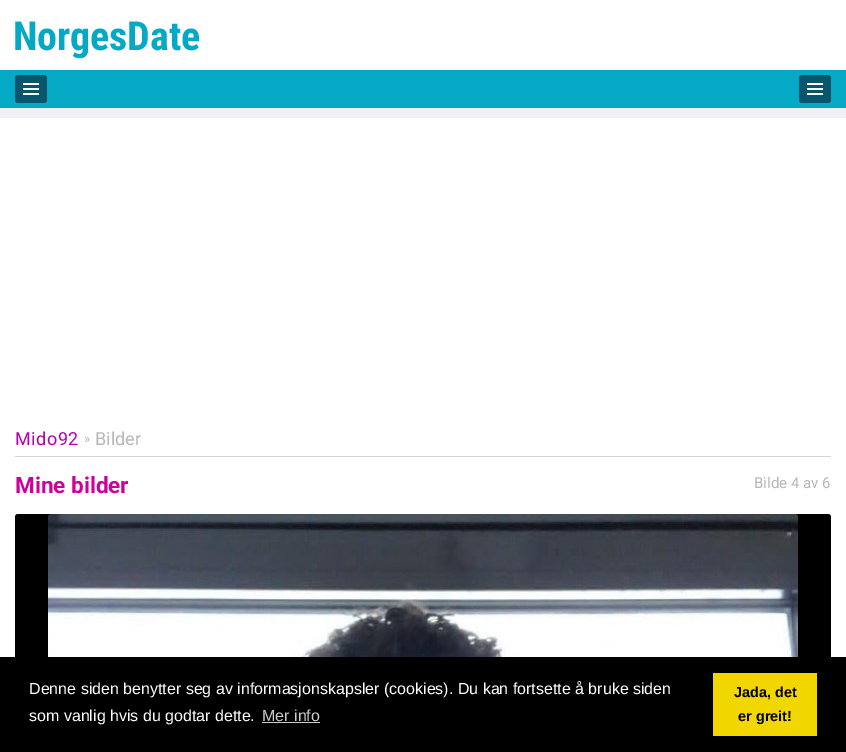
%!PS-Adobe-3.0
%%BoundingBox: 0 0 846 752
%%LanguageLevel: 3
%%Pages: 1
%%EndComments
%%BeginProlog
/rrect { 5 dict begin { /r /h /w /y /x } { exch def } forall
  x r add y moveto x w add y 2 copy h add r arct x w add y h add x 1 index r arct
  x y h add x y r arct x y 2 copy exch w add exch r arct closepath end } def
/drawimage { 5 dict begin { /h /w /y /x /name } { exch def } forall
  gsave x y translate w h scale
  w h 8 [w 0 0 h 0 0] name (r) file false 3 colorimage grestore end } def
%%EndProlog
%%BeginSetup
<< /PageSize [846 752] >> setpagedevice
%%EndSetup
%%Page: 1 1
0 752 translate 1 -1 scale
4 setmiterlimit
0.937 0.945 0.961 setrgbcolor
0 0 846 752 rectfill
1 setgray
0 0 846 70 rectfill
(images/1.raw) 15 21 184 38 drawimage
0.024 0.663 0.773 setrgbcolor
0 70 846 38 rectfill
0.039 0.333 0.431 setrgbcolor
15 75 32 28 3 rrect fill
(images/2.raw) 23 83 16 12 drawimage
799 75 32 28 3 rrect fill
(images/2.raw) 807 83 16 12 drawimage
1 setgray
0 118 846 539 rectfill
0.835 setgray
15 456 816 1 rectfill
0 setgray
15 514 816 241 3 rrect fill
(images/3.raw) 48 514 750 143 drawimage
0 657 846 95 rectfill
0.8 setgray
262 722 58 1 rectfill
0.945 0.839 0 setrgbcolor
713 673 104 63 rectfill
/Roboto-Regular [18 0 0 -18 0 0] selectfont
0.698 0 0.698 setrgbcolor
15 445 moveto 0.5 0 (Mido92) ashow
/Roboto-Regular [13 0 0 -13 0 0] selectfont
0.718 setgray
84 443 moveto (») show
/Roboto-Regular [18 0 0 -18 0 0] selectfont
95 445 moveto (Bilder) show
/Roboto-Bold [22.5 0 0 -22.5 0 0] selectfont
0.808 0 0.612 setrgbcolor
15 493 moveto (Mine bilder) show
/Roboto-Regular [15 0 0 -15 0 0] selectfont
0.718 setgray
754 488 moveto (Bilde 4 av 6) show
/LiberationSans-Regular [16 0 0 -16 0 0] selectfont
1 setgray
29 694 moveto (Denne siden benytter seg av informasjonskapsler \(cookies\). Du kan fortsette å bruke siden) show
29 721 moveto (som vanlig hvis du godtar dette.) show
0.8 setgray
262 721 moveto (Mer info) show
/LiberationSans-Bold [14.5 0 0 -14.5 0 0] selectfont
0 setgray
734 697 moveto (Jada, det) show
738 721 moveto (er greit!) show
showpage
%%EOF
